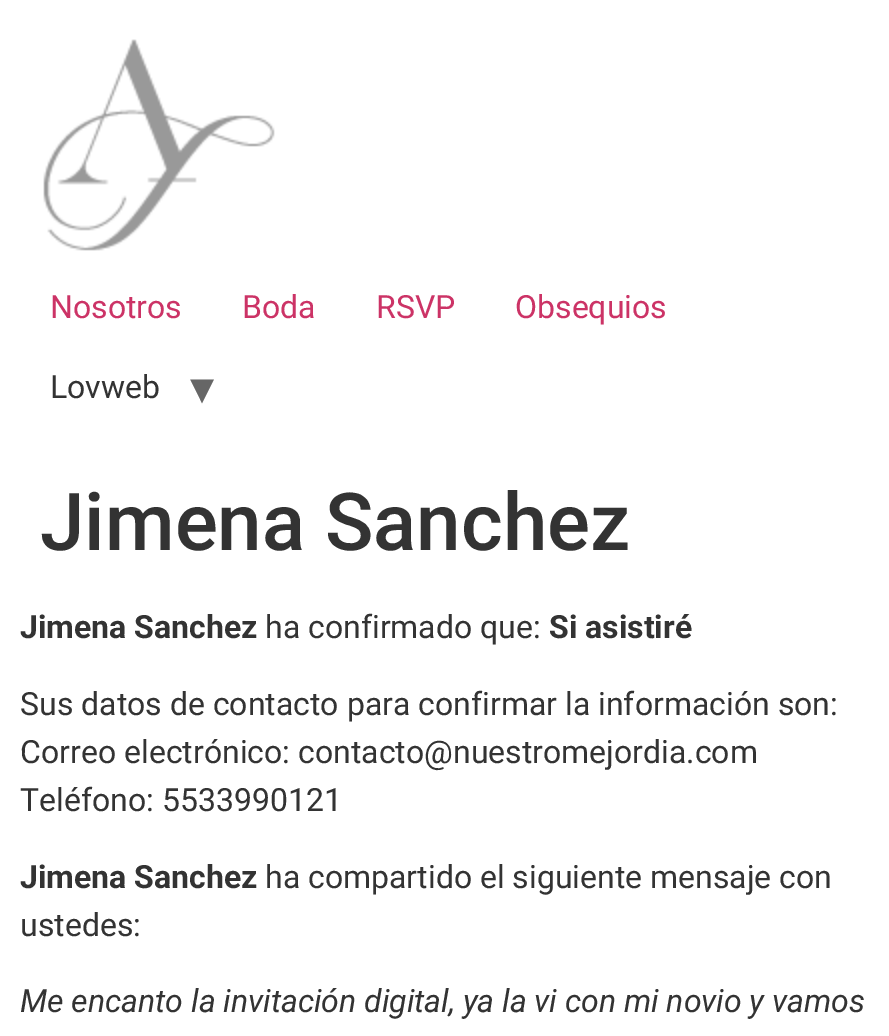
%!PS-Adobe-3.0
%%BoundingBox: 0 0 889 1036
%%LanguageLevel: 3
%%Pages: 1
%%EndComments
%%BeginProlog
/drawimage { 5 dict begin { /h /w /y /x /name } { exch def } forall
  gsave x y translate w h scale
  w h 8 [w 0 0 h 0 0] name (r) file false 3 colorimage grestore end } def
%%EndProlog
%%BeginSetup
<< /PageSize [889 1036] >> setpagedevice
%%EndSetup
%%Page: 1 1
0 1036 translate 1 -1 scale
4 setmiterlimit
1 setgray
0 0 889 1036 rectfill
(images/1.raw) 43 39 232 212 drawimage
/Roboto-Regular [32 0 0 -32 0 0] selectfont
0.8 0.2 0.4 setrgbcolor
50 318 moveto (Nosotros) show
242 318 moveto (Boda) show
376 318 moveto (RSVP) show
515 318 moveto (Obsequios) show
0.2 setgray
50 398 moveto (Lovweb) show
/DejaVuSans-Regular [48 0 0 -48 0 0] selectfont
0.4 setgray
190 404 moveto (▾) show
/Roboto-Medium [80 0 0 -80 0 0] selectfont
0.2 setgray
40 550 moveto (Jimena Sanchez) show
/Roboto-Bold [32 0 0 -32 0 0] selectfont
20 638 moveto (Jimena Sanchez) show
/Roboto-Regular [32 0 0 -32 0 0] selectfont
265 638 moveto (ha confirmado que:) show
/Roboto-Bold [32 0 0 -32 0 0] selectfont
549 638 moveto (Si asistiré) show
/Roboto-Regular [32 0 0 -32 0 0] selectfont
20 715 moveto (Sus datos de contacto para confirmar la información son:) show
20 763 moveto (Correo electrónico: contacto@nuestromejordia.com) show
20 811 moveto (Teléfono: 5533990121) show
/Roboto-Bold [32 0 0 -32 0 0] selectfont
20 888 moveto (Jimena Sanchez) show
/Roboto-Regular [32 0 0 -32 0 0] selectfont
265 888 moveto (ha compartido el siguiente mensaje con) show
20 936 moveto (ustedes:) show
/Roboto-Italic [32 0 0 -32 0 0] selectfont
20 1012 moveto (Me encanto la invitación digital, ya la vi con mi novio y vamos) show
showpage
%%EOF
